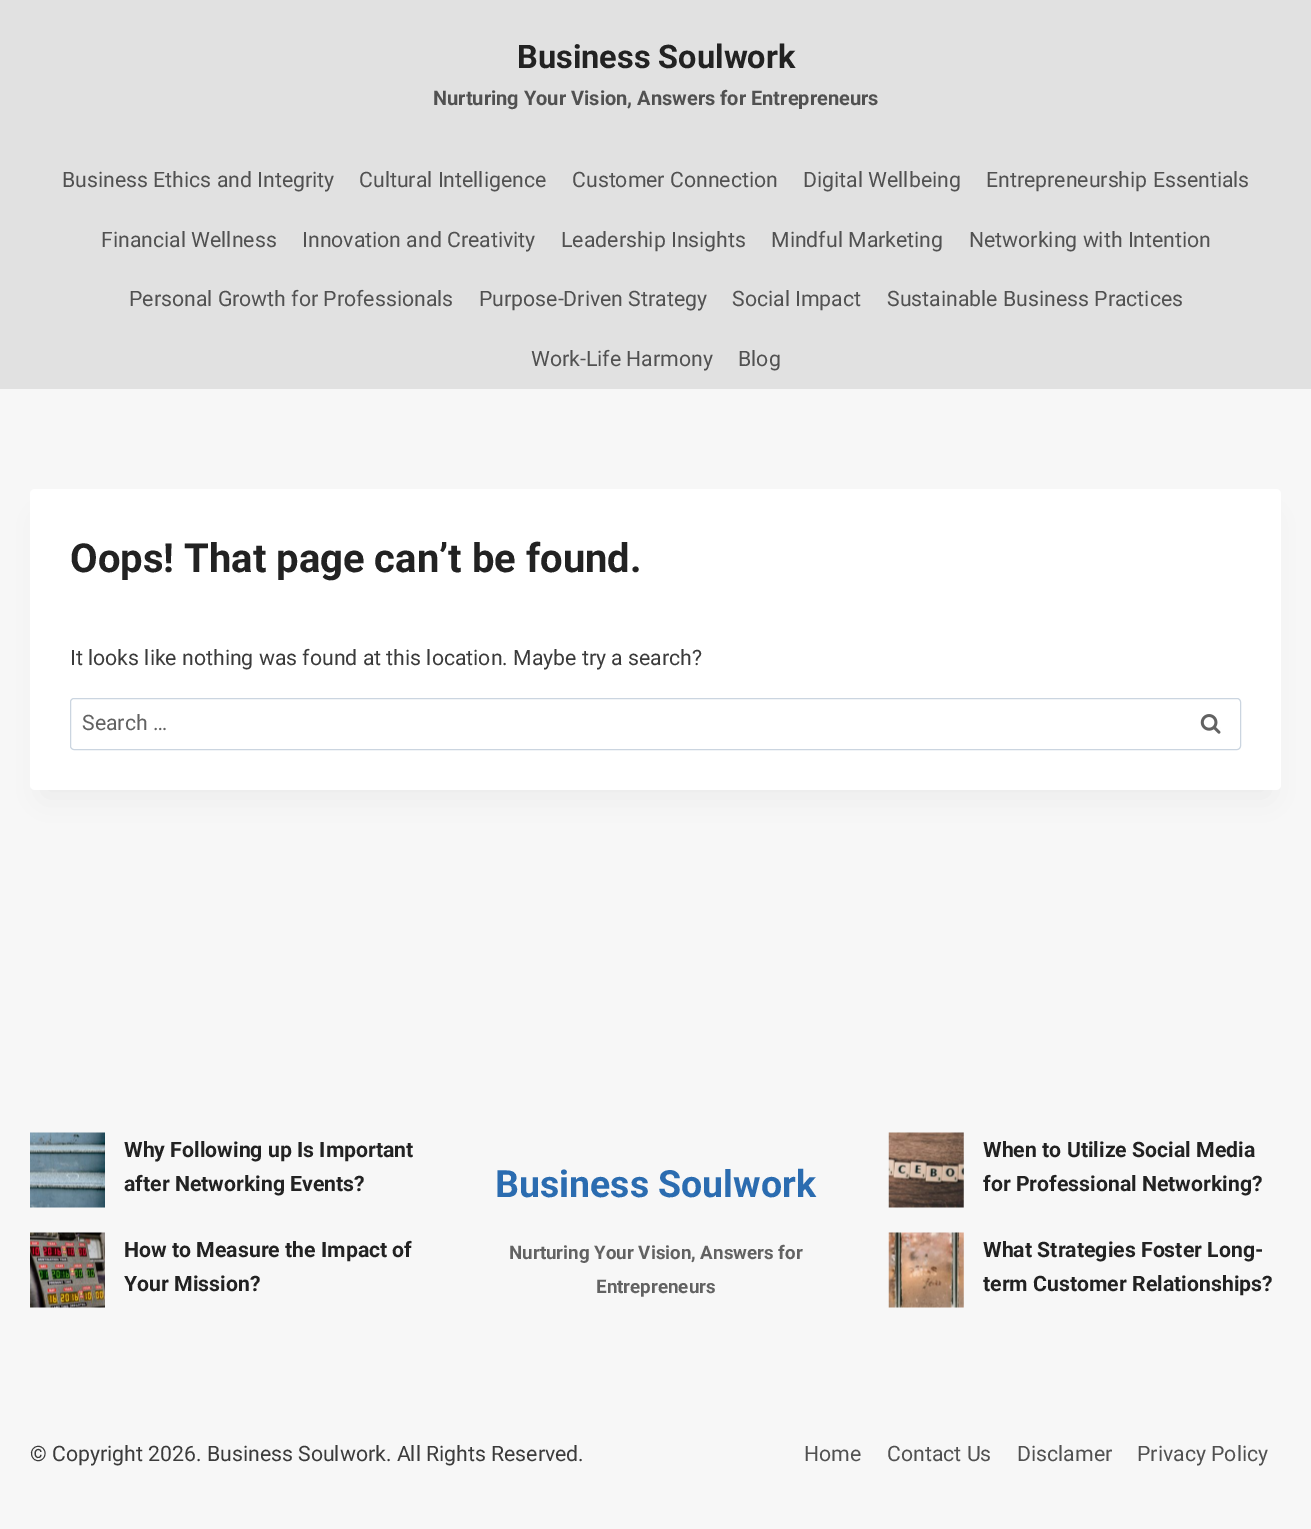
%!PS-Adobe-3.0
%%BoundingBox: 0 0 1311 1529
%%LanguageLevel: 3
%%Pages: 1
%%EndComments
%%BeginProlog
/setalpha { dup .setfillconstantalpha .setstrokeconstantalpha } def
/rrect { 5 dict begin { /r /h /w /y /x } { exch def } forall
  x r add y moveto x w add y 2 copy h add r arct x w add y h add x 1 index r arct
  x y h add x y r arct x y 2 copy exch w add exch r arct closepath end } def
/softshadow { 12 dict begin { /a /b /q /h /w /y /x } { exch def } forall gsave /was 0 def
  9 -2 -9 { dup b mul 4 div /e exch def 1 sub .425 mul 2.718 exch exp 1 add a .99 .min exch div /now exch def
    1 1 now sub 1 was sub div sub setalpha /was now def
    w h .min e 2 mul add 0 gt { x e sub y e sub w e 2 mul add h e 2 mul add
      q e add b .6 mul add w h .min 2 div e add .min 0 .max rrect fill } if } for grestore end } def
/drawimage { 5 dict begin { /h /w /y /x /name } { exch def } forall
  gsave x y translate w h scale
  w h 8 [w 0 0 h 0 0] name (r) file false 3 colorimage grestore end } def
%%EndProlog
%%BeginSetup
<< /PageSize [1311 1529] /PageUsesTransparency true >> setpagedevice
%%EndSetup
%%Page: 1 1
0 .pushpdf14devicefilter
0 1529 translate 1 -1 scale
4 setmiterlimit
0.969 setgray
0 0 1311 1529 rectfill
0.882 setgray
0 0 1311 389 rectfill
0 setgray
43 520 1226 276 0 15.5 0.05 softshadow
1 setgray
30 489 1251 301 5 rrect fill
0.796 0.835 0.878 setrgbcolor
70.5 698.5 1170 51 3.5 rrect stroke
(images/1.raw) 1200 714 21 20 drawimage
(images/2.raw) 30 1132 75 76 drawimage
(images/3.raw) 30 1232 75 76 drawimage
(images/4.raw) 888 1132 76 76 drawimage
(images/5.raw) 888 1232 76 76 drawimage
/Roboto-Bold [32.5 0 0 -32.5 0 0] selectfont
0.133 setgray
517 68 moveto (Business Soulwork) show
/Roboto-Bold [20 0 0 -20 0 0] selectfont
0.318 setgray
433 105 moveto (Nurturing Your Vision, Answers for Entrepreneurs) show
/Roboto-Regular [21.25 0 0 -21.25 0 0] selectfont
62 187 moveto (Business Ethics and Integrity) show
359 187 moveto (Cultural Intelligence) show
572 187 moveto (Customer Connection) show
803 187 moveto (Digital Wellbeing) show
986 187 moveto (Entrepreneurship Essentials) show
101 247 moveto (Financial Wellness) show
302 247 moveto (Innovation and Creativity) show
561 247 moveto (Leadership Insights) show
771 247 moveto (Mindful Marketing) show
969 247 moveto (Networking with Intention) show
129 306 moveto (Personal Growth for Professionals) show
479 306 moveto (Purpose-Driven Strategy) show
732 306 moveto (Social Impact) show
887 306 moveto (Sustainable Business Practices) show
531 366 moveto (Work-Life Harmony) show
738 366 moveto (Blog) show
/Roboto-Bold [40 0 0 -40 0 0] selectfont
0.133 setgray
70 572 moveto (Oops! That page can’t be found.) show
/Roboto-Regular [21.25 0 0 -21.25 0 0] selectfont
0.231 setgray
70 665 moveto (It looks like nothing was found at this location. Maybe try a search?) show
0.384 setgray
82 730 moveto (Search …) show
/Roboto-Bold [21.25 0 0 -21.25 0 0] selectfont
0.133 setgray
124 1157 moveto (Why Following up Is Important) show
124 1191 moveto (after Networking Events?) show
124 1257 moveto (How to Measure the Impact of) show
124 1291 moveto (Your Mission?) show
/Roboto-Bold [37.5 0 0 -37.5 0 0] selectfont
0.169 0.424 0.69 setrgbcolor
495 1197 moveto (Business Soulwork) show
/Roboto-Bold [18.75 0 0 -18.75 0 0] selectfont
0.384 setgray
509 1259 moveto (Nurturing Your Vision, Answers for) show
596 1293 moveto (Entrepreneurs) show
/Roboto-Bold [21.25 0 0 -21.25 0 0] selectfont
0.133 setgray
983 1157 moveto (When to Utilize Social Media) show
983 1191 moveto (for Professional Networking?) show
983 1257 moveto (What Strategies Foster Long-) show
983 1291 moveto (term Customer Relationships?) show
/Roboto-Regular [21.25 0 0 -21.25 0 0] selectfont
0.231 setgray
30 1461 moveto (© Copyright 2026. Business Soulwork. All Rights Reserved.) show
0.318 setgray
804 1461 moveto (Home) show
887 1461 moveto (Contact Us) show
1017 1461 moveto (Disclamer) show
1137 1461 moveto (Privacy Policy) show
.poppdf14devicefilter showpage
%%EOF
